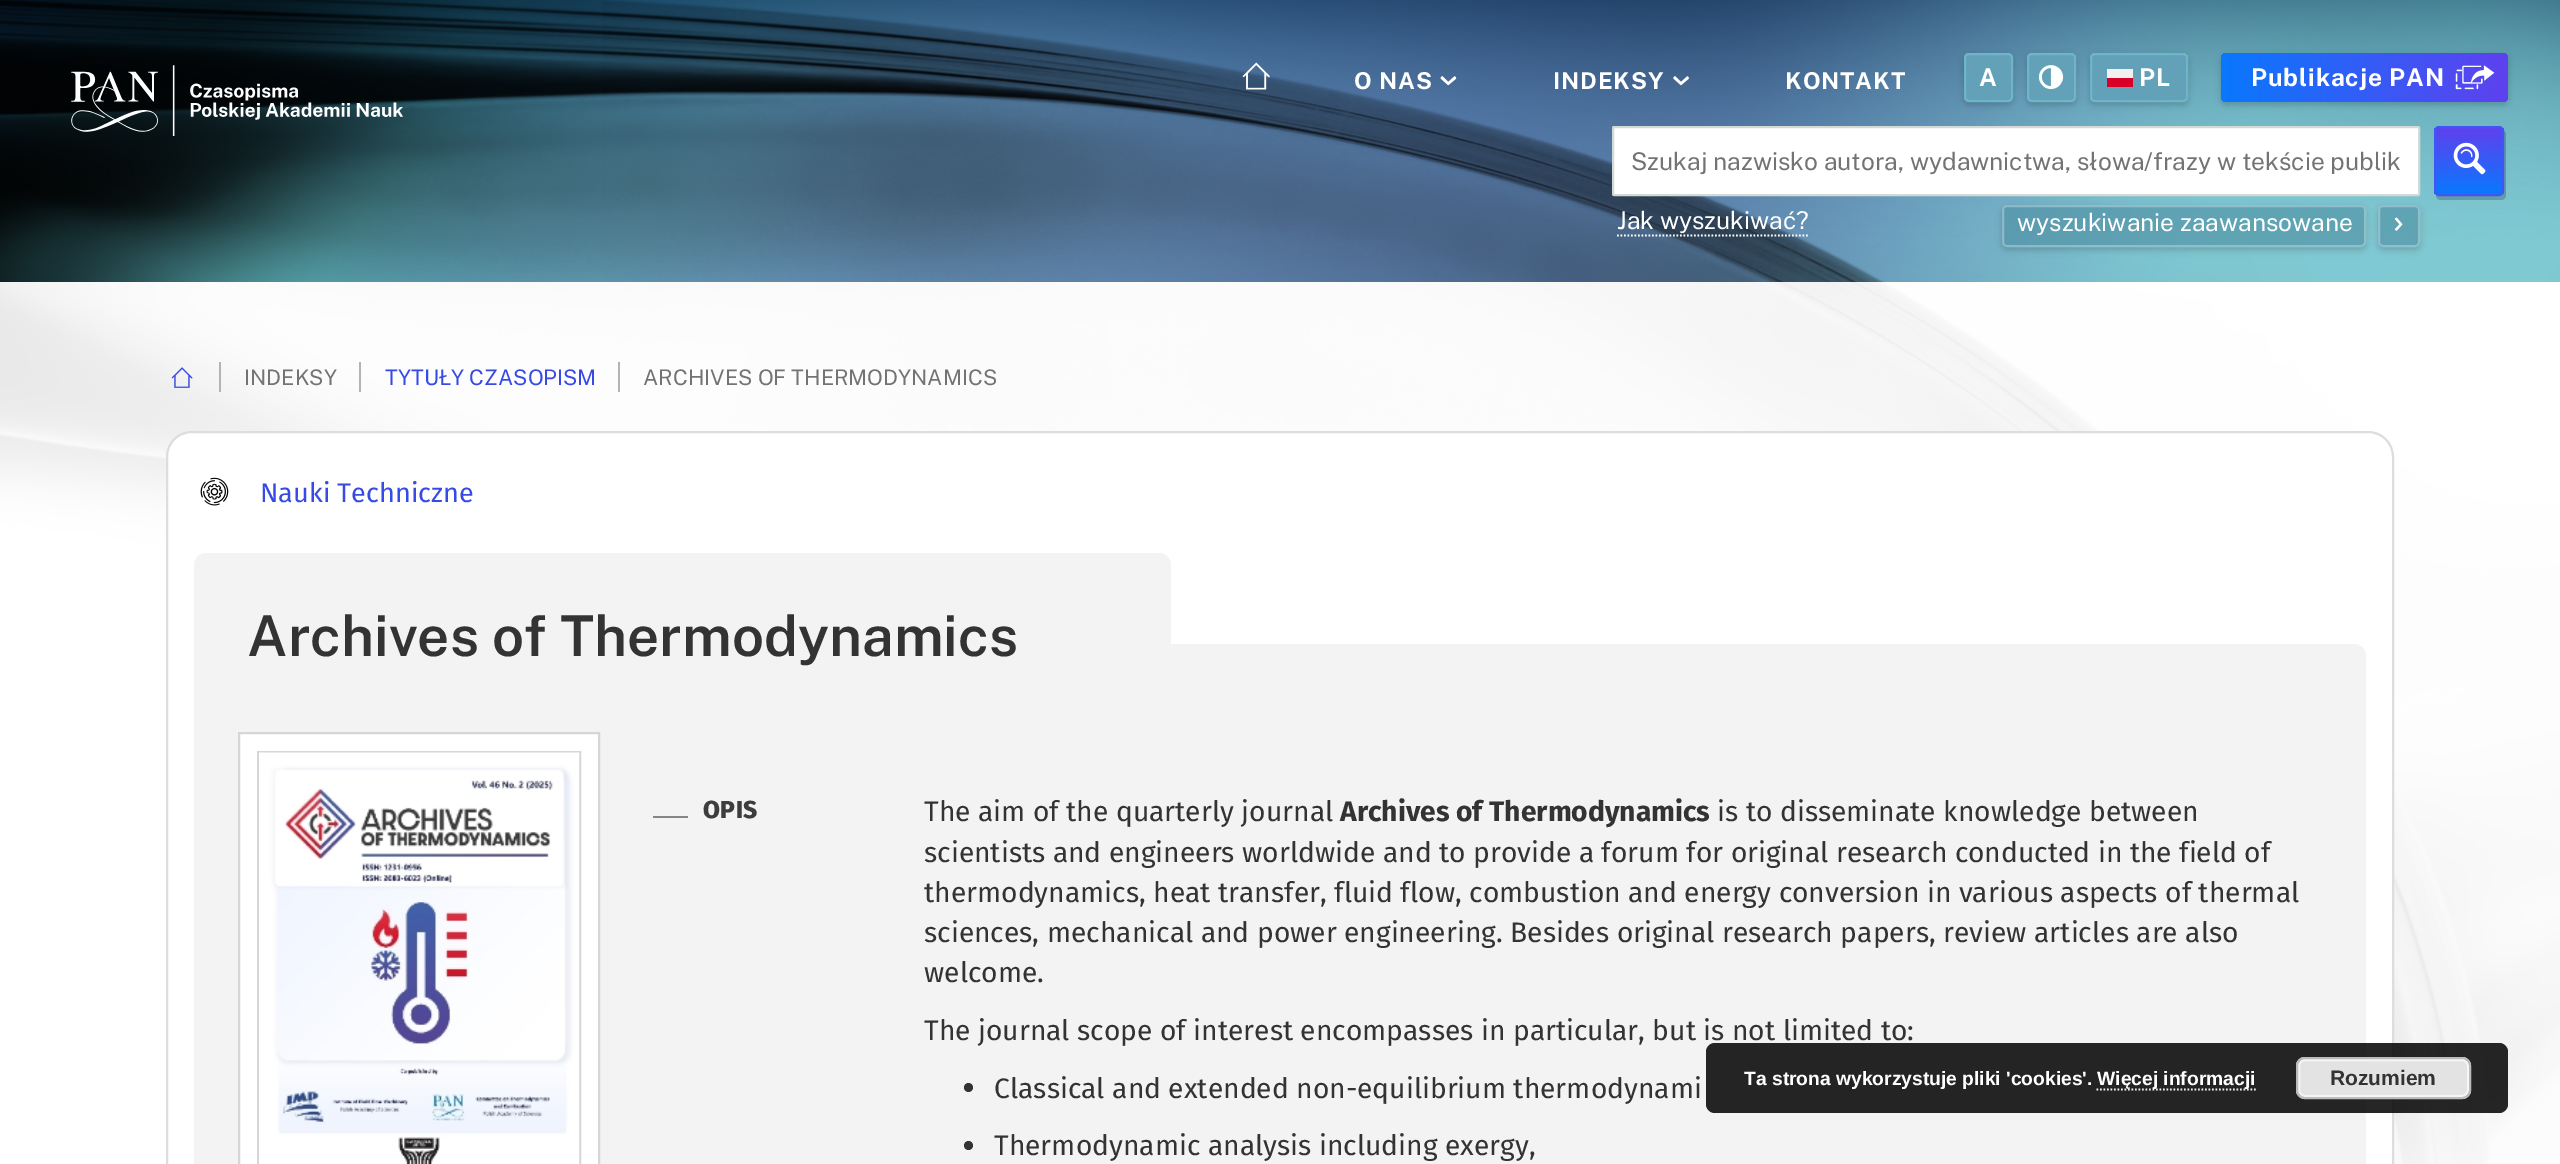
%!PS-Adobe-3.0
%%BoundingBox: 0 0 2560 1164
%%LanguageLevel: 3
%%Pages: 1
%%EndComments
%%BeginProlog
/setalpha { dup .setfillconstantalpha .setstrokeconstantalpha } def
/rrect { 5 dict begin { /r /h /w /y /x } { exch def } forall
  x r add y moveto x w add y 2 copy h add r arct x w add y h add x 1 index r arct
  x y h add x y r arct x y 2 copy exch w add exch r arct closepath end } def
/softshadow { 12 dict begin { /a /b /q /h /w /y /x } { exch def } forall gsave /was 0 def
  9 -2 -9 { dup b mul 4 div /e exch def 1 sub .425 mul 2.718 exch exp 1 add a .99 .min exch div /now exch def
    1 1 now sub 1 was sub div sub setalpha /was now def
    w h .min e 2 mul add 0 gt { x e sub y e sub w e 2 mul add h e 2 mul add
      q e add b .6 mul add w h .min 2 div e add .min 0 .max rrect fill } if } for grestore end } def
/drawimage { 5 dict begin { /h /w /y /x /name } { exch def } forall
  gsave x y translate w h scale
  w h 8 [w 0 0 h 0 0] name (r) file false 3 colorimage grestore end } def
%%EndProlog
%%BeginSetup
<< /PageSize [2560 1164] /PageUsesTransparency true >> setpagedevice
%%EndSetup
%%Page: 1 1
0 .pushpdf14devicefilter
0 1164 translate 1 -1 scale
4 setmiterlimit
1 setgray
0 0 2560 1164 rectfill
(images/1.raw) 0 282 2560 882 drawimage
(images/2.raw) 0 0 2560 282 drawimage
(images/3.raw) 71 65 332 71 drawimage
(images/4.raw) 1242 62 28 28 drawimage
(images/5.raw) 1440 76 17 10 drawimage
(images/6.raw) 1673 76 16 10 drawimage
0 setgray
1964 56 49 49 5 3.5 0.18 softshadow
0.384 0.631 0.722 setrgbcolor
1964 53 49 49 5 rrect fill
0.68 setalpha
0.459 0.749 0.827 setrgbcolor
2 setlinewidth
1965 54 47 47 4 rrect stroke
1 setalpha
0 setgray
2027 56 49 49 5 3.5 0.18 softshadow
0.384 0.631 0.722 setrgbcolor
2027 53 49 49 5 rrect fill
0.68 setalpha
0.459 0.749 0.827 setrgbcolor
2028 54 47 47 4 rrect stroke
1 setalpha
(images/7.raw) 2038 65 26 25 drawimage
0 setgray
2090 56 98 49 5 3.5 0.18 softshadow
0.384 0.631 0.722 setrgbcolor
2090 53 98 49 5 rrect fill
0.68 setalpha
0.459 0.749 0.827 setrgbcolor
2091 54 96 47 4 rrect stroke
1 setalpha
0.941 setgray
2107 69 26 9 rectfill
0.847 0 0.153 setrgbcolor
2107 78 26 9 rectfill
0 setgray
2221 56 287 49 5 3.5 0.18 softshadow
gsave 2221 53 287 49 5 rrect clip newpath
<< /ShadingType 2 /ColorSpace /DeviceRGB /Coords [2221 77 2508 77] /Extend [true true] /Function << /FunctionType 2 /Domain [0 1] /C0 [0.035 0.471 0.992] /C1 [0.369 0.255 0.937] /N 1 >> >> shfill grestore
(images/8.raw) 2455 65 40 25 drawimage
1 setgray
1613 127 806 68 1 rrect gsave fill grestore
0.827 0.851 0.835 setrgbcolor
stroke
0.2 setalpha
0 setgray
newpath 2436 195 moveto 2436 198 2438 200 2441 200 curveto 2501 200 lineto 2504 200 2506 198 2506 195 curveto 2506 135 lineto 2506 133 2505 132 2504 131 curveto 2504 181 lineto 2504 197 2505 196 2489 196 curveto 2449 196 lineto 2447 196 2439 197 2436 195 curveto closepath fill
gsave
2434 126 70 70 5 rrect clip newpath
1 setalpha
gsave newpath 2434 128 moveto 2504 128 lineto 2504 194 lineto 2434 194 lineto closepath clip newpath
<< /ShadingType 2 /ColorSpace /DeviceRGB /Coords [2469 128 2469 194] /Extend [true true] /Function << /FunctionType 3 /Domain [0 1] /Functions [<< /FunctionType 2 /Domain [0 1] /C0 [0.369 0.255 0.937] /C1 [0.369 0.255 0.937] /N 1 >> << /FunctionType 2 /Domain [0 1] /C0 [0.369 0.255 0.937] /C1 [0.035 0.471 0.992] /N 1 >>] /Bounds [0.01] /Encode [0 1 0 1] >> >> shfill grestore
grestore
1 setalpha
0.247 0.337 0.957 setrgbcolor
2435 127 68 68 4 rrect stroke
(images/9.raw) 2453 142 33 33 drawimage
1 setgray
1.8 setlinewidth
[1.75 1.75] 0 setdash
newpath 1617 235.5 moveto 1809.5 235.5 lineto stroke
gsave
newpath 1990 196 moveto 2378 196 lineto 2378 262 lineto 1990 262 lineto closepath 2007 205 moveto 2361 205 lineto 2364 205 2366 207 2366 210 curveto 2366 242 lineto 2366 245 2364 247 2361 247 curveto 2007 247 lineto 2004 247 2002 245 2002 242 curveto 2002 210 lineto 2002 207 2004 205 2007 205 curveto closepath eoclip newpath
0 setgray
2002 208 364 42 5 3.5 0.18 softshadow
grestore
0.6 setalpha
0.294 0.549 0.627 setrgbcolor
2002 205 364 42 5 rrect fill
0.3 setalpha
1 setgray
2 setlinewidth
[] 0 setdash
2003 206 362 40 4 rrect stroke
gsave
newpath 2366 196 moveto 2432 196 lineto 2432 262 lineto 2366 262 lineto closepath 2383 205 moveto 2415 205 lineto 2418 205 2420 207 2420 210 curveto 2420 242 lineto 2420 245 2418 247 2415 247 curveto 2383 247 lineto 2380 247 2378 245 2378 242 curveto 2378 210 lineto 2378 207 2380 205 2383 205 curveto closepath eoclip newpath
1 setalpha
0 setgray
2378 208 42 42 5 3.5 0.18 softshadow
grestore
0.6 setalpha
0.294 0.549 0.627 setrgbcolor
2378 205 42 42 5 rrect fill
0.3 setalpha
1 setgray
2379 206 40 40 4 rrect stroke
1 setalpha
(images/10.raw) 2394 217 9 14 drawimage
0.9 setalpha
0 282 2560 882 rectfill
1 setalpha
0.702 setgray
219 362 2 30 rectfill
(images/11.raw) 171 367 22 21 drawimage
359 362 2 30 rectfill
618 362 2 30 rectfill
1 setgray
newpath 192 432 moveto 2368 432 lineto 2382 432 2393 443 2393 457 curveto 2393 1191 lineto 167 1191 lineto 167 457 lineto 167 443 178 432 192 432 curveto closepath gsave fill grestore
0.867 setgray
stroke
(images/12.raw) 200 477 29 29 drawimage
0.953 setgray
newpath 194 644 moveto 2354 644 lineto 2360.5 644 2366 649.5 2366 656 curveto 2366 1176 lineto 194 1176 lineto closepath fill
newpath 206 553 moveto 1159 553 lineto 1165.5 553 1171 558.5 1171 565 curveto 1171 679 lineto 194 679 lineto 194 565 lineto 194 558.5 199.5 553 206 553 curveto closepath fill
1 setgray
newpath 239 733 moveto 599 733 lineto 599 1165 lineto 239 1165 lineto closepath gsave fill grestore
0.839 setgray
stroke
258 752 322 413 rectstroke
(images/13.raw) 259 752 321 412 drawimage
0.525 setgray
653 816 35 2 rectfill
0.2 setgray
newpath 968.5 1087.5 4.5 0 360 arc closepath fill
newpath 968.5 1145.5 4.5 0 360 arc closepath fill
/PublicSans-Bold [23.25 0 0 -23.25 0 0] selectfont
1 setgray
1354 89 moveto 0.9 0 (O NAS) ashow
1553 89 moveto 0.9 0 (INDEKSY) ashow
1785 89 moveto 0.9 0 (KONTAKT) ashow
/PublicSans-Bold [24.5 0 0 -24.5 0 0] selectfont
1979 86 moveto 0.9 0 (A) ashow
2139 86 moveto 0.9 0 (PL) ashow
2251 86 moveto 0.9 0 (Publikacje PAN) ashow
/PublicSans-Regular [24.5 0 0 -24.5 0 0] selectfont
0.451 setgray
1631 170 moveto (Szukaj nazwisko autora, wydawnictwa, słowa/frazy w tekście publik) show
1 setgray
1617 229 moveto (Jak wyszukiwać?) show
2017 231 moveto (wyszukiwanie zaawansowane) show
/PublicSans-Regular [21.5 0 0 -21.5 0 0] selectfont
0.451 setgray
244 385 moveto (INDEKSY) show
0.216 0.294 0.894 setrgbcolor
385 385 moveto (TYTUŁY CZASOPISM) show
0.451 setgray
643 385 moveto (ARCHIVES OF THERMODYNAMICS) show
/FiraSans-Regular [27 0 0 -27 0 0] selectfont
0.216 0.294 0.894 setrgbcolor
260 502 moveto (Nauki Techniczne) show
/PublicSans-SemiBold [56.4 0 0 -56.4 0 0] selectfont
0.2 setgray
247 656 moveto (Archives of Thermodynamics) show
/FiraSans-ExtraBold [24.5 0 0 -24.5 0 0] selectfont
0.239 setgray
703 818 moveto 0.5 0 (OPIS) ashow
/FiraSans-Regular [28.2 0 0 -28.2 0 0] selectfont
0.2 setgray
924 821 moveto (The aim of the quarterly journal) show
/FiraSans-Bold [28.2 0 0 -28.2 0 0] selectfont
1340 821 moveto (Archives of Thermodynamics) show
/FiraSans-Regular [28.2 0 0 -28.2 0 0] selectfont
1717 821 moveto (is to disseminate knowledge between) show
924 862 moveto (scientists and engineers worldwide and to provide a forum for original research conducted in the field of) show
924 902 moveto (thermodynamics, heat transfer, fluid flow, combustion and energy conversion in various aspects of thermal) show
924 942 moveto (sciences, mechanical and power engineering. Besides original research papers, review articles are also) show
924 982 moveto (welcome.) show
924 1040 moveto (The journal scope of interest encompasses in particular, but is not limited to:) show
994 1098 moveto (Classical and extended non-equilibrium thermodynami) show
994 1155 moveto (Thermodynamic analysis including exergy,) show
0.85 setalpha
0 setgray
1706 1043 802 70 9 rrect fill
/LiberationSans-Bold [19.25 0 0 -19.25 0 0] selectfont
1 setalpha
1 setgray
1744 1085 moveto (Ta strona wykorzystuje pliki 'cookies'.) show
0.933 setgray
1.8 setlinewidth
[1.75 1.75] 0 setdash
newpath 2096.5 1089.5 moveto 2256 1089.5 lineto stroke
1 setgray
2097 1085 moveto (Więcej informacji) show
0.89 setgray
2296 1057 175 42 9 rrect fill
0.965 setgray
2 setlinewidth
[] 0 setdash
2299 1060 169 36 6 rrect stroke
0.733 setgray
2297 1058 173 40 8 rrect stroke
/LiberationSans-Bold [21 0 0 -21 0 0] selectfont
0.2 setgray
2330 1085 moveto (Rozumiem) show
.poppdf14devicefilter showpage
%%EOF
